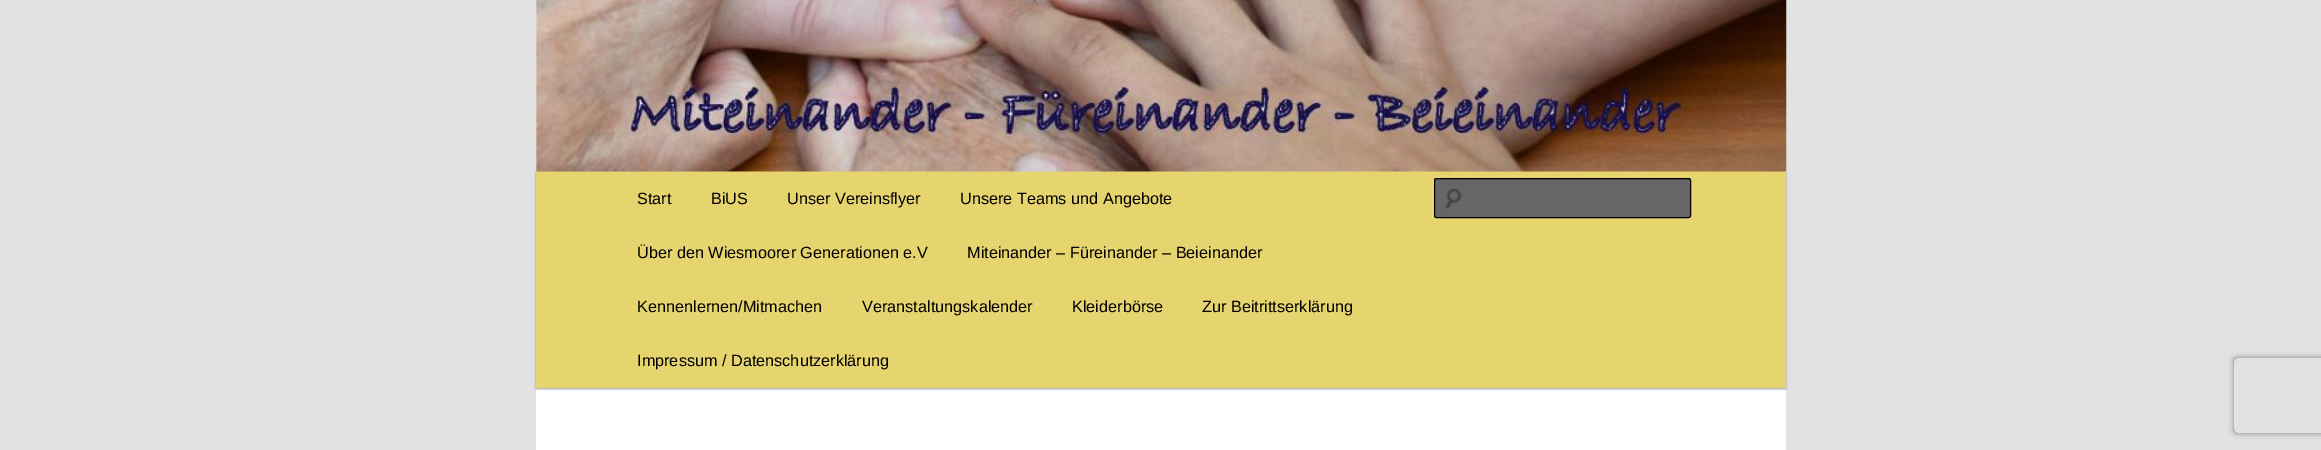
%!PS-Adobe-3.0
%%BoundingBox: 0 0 2321 450
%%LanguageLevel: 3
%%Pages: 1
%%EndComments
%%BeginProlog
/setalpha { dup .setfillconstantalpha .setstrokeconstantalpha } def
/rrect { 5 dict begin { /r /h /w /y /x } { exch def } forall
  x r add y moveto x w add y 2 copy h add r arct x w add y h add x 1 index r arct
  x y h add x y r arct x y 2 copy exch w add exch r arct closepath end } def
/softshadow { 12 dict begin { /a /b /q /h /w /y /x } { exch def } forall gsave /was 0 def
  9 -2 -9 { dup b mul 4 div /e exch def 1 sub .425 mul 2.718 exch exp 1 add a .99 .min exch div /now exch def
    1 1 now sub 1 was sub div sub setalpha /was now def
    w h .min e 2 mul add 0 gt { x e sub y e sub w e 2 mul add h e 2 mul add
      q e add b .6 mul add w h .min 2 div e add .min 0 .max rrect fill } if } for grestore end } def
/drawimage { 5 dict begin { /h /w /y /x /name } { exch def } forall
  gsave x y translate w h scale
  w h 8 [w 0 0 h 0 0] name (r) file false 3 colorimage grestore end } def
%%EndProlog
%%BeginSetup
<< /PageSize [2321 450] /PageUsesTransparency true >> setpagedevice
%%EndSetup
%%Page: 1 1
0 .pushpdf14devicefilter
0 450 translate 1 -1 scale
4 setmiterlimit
0.886 setgray
0 0 2321 450 rectfill
1 setgray
536 0 1250 450 rectfill
0 setgray
536 173 1250 216 0 1 0.4 softshadow
0.902 0.831 0.431 setrgbcolor
536 171 1250 217 rectfill
(images/1.raw) 536 0 1251 172 drawimage
0.4 setgray
1434 178 257 40 2.5 rrect fill
(images/2.raw) 1445 188 17 21 drawimage
0.361 setgray
newpath 1436 180 moveto 1689 180 lineto 1690 181 lineto 1690 179 lineto 1436 179 lineto 1435 179 1435 180 1435 181 curveto closepath fill
0 setgray
1434.5 178.5 256 39 2 rrect stroke
gsave
newpath 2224 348 moveto 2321 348 lineto 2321 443 lineto 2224 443 lineto closepath 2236.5 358 moveto 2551.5 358 lineto 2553 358 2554 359 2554 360.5 curveto 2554 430.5 lineto 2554 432 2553 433 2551.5 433 curveto 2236.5 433 lineto 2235 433 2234 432 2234 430.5 curveto 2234 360.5 lineto 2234 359 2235 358 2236.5 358 curveto closepath eoclip newpath
0.502 setgray
2234 358 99 75 2.5 3 1 softshadow
grestore
/LiberationSans-Regular [16.25 0 0 -16.25 0 0] selectfont
637 204 moveto (Start) show
711 204 moveto (BiUS) show
787 204 moveto (Unser Vereinsflyer) show
960 204 moveto (Unsere Teams und Angebote) show
637 258 moveto (Über den Wiesmoorer Generationen e.V) show
967 258 moveto (Miteinander – Füreinander – Beieinander) show
637 312 moveto (Kennenlernen/Mitmachen) show
862 312 moveto (Veranstaltungskalender) show
1072 312 moveto (Kleiderbörse) show
1202 312 moveto (Zur Beitrittserklärung) show
637 366 moveto (Impressum / Datenschutzerklärung) show
.poppdf14devicefilter showpage
%%EOF
